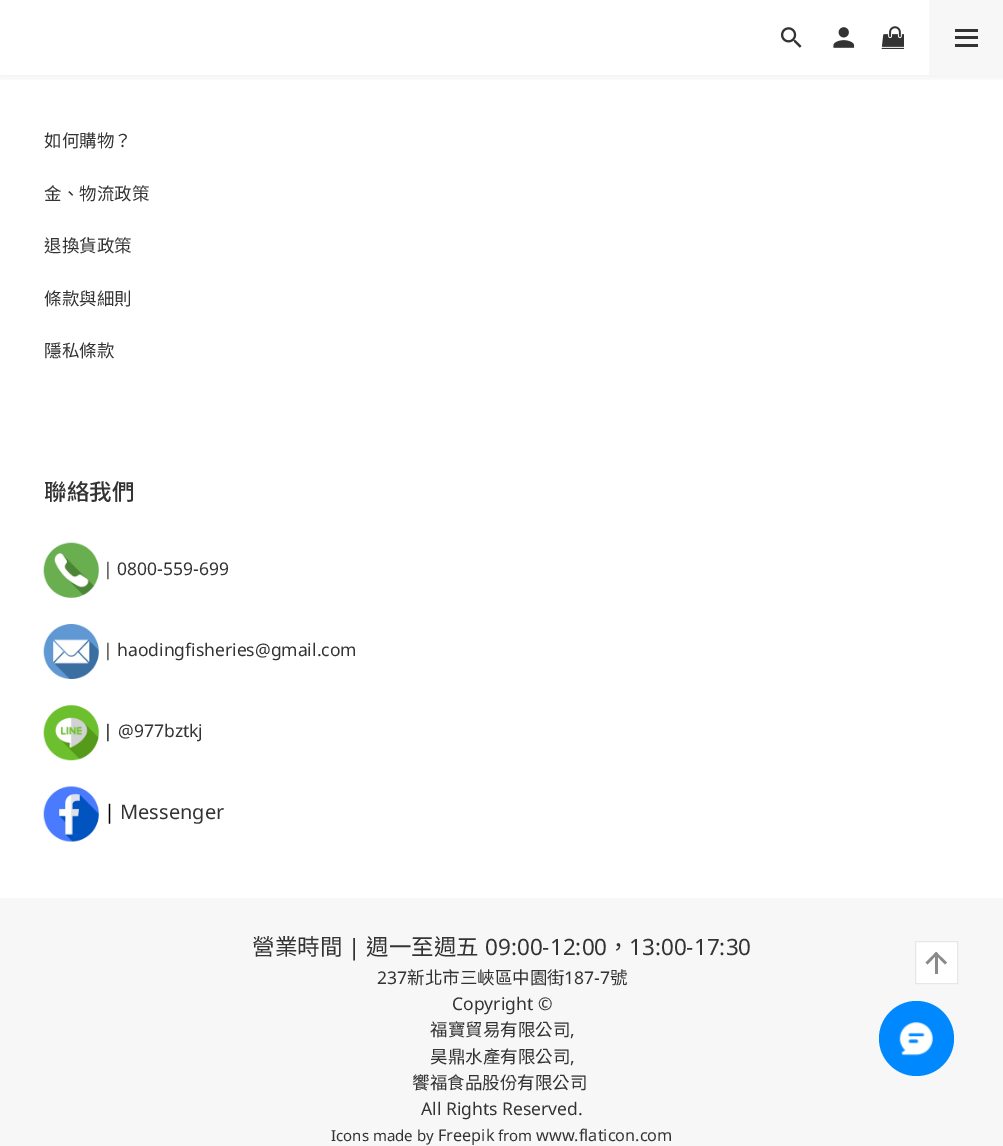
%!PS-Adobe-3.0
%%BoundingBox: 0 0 1003 1146
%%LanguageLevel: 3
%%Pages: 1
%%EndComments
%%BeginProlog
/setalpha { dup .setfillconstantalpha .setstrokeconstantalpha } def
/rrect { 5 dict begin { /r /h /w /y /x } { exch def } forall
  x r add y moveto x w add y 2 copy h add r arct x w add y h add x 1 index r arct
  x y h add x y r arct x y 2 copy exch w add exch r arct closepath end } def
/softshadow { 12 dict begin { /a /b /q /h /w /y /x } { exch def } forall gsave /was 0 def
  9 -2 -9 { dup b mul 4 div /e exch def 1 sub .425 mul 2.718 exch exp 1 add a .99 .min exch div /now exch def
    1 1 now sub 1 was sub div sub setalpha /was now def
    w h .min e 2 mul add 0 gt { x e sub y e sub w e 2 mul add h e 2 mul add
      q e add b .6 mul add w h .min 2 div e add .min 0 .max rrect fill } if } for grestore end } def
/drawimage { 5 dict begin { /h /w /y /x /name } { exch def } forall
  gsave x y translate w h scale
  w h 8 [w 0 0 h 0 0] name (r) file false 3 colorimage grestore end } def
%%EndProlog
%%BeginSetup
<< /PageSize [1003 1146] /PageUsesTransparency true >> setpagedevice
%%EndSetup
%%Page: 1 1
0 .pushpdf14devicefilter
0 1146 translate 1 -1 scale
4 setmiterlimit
1 setgray
0 0 1003 1146 rectfill
gsave
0 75 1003 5 rectclip
0 setgray
0 3 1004 75 0 4 0.06 softshadow
grestore
(images/1.raw) 780 27 22 21 drawimage
(images/2.raw) 833 27 22 21 drawimage
(images/3.raw) 881 26 23 23 drawimage
0.969 setgray
929 0 74 75 rectfill
0.2 setgray
955 36 23 3 rectfill
955 29 23 3 rectfill
955 44 23 3 rectfill
(images/4.raw) 43 542 56 56 drawimage
(images/5.raw) 43 624 56 55 drawimage
(images/6.raw) 43 705 56 56 drawimage
(images/7.raw) 43 786 56 56 drawimage
0.969 setgray
0 898 1003 248 rectfill
1 setgray
newpath 915.5 941.5 moveto 957.5 941.5 lineto 957.5 983.5 lineto 915.5 983.5 lineto closepath gsave fill grestore
0.906 setgray
stroke
0.541 setgray
newpath 936 952 moveto 947 962.5 lineto 945 964.5 lineto 934.5 953.5 lineto closepath fill
newpath 936 952 moveto 938 953.5 lineto 927.5 964.5 lineto 925.5 962.5 lineto closepath fill
935 956 3 18 rectfill
0 0.533 0.996 setrgbcolor
newpath 916.5 1038.5 37.5 0 360 arc closepath fill
(images/8.raw) 899 1022 34 34 drawimage
/NotoSansTC-Regular [17.5 0 0 -17.5 0 0] selectfont
0.2 setgray
44 147 moveto (如何購物？) show
44 200 moveto (金、物流政策) show
44 252 moveto (退換貨政策) show
44 305 moveto (條款與細則) show
44 357 moveto (隱私條款) show
/NotoSansTC-Medium [22.5 0 0 -22.5 0 0] selectfont
44 500 moveto (聯絡我們) show
/NotoSans-Regular [17.5 0 0 -17.5 0 0] selectfont
103 575 moveto (| 0800-559-699) show
103 656 moveto (| haodingfisheries@gmail.com) show
0 setgray
103 737 moveto (|) show
0.2 setgray
118 737 moveto (@977bztkj) show
/NotoSans-Regular [20 0 0 -20 0 0] selectfont
0 setgray
104 819 moveto (|) show
0.2 setgray
120 819 moveto (Messenger) show
/NotoSansTC-Regular [22.5 0 0 -22.5 0 0] selectfont
252 955 moveto (營業時間) show
/NotoSans-Regular [22.5 0 0 -22.5 0 0] selectfont
348 955 moveto (|) show
/NotoSansTC-Regular [22.5 0 0 -22.5 0 0] selectfont
366 955 moveto (週一至週五) show
/NotoSans-Regular [22.5 0 0 -22.5 0 0] selectfont
485 955 moveto (09:00-12:00) show
/NotoSansTC-Regular [22.5 0 0 -22.5 0 0] selectfont
607 955 moveto (，) show
/NotoSans-Regular [22.5 0 0 -22.5 0 0] selectfont
629 955 moveto (13:00-17:30) show
/NotoSans-Regular [17.5 0 0 -17.5 0 0] selectfont
377 984 moveto (237) show
/NotoSansTC-Regular [17.5 0 0 -17.5 0 0] selectfont
407 984 moveto (新北市三峽區中園街) show
/NotoSans-Regular [17.5 0 0 -17.5 0 0] selectfont
564 984 moveto (187-7) show
/NotoSansTC-Regular [17.5 0 0 -17.5 0 0] selectfont
610 984 moveto (號) show
/NotoSans-Regular [17.5 0 0 -17.5 0 0] selectfont
452 1010 moveto (Copyright ©) show
/NotoSansTC-Regular [17.5 0 0 -17.5 0 0] selectfont
430 1036 moveto (福寶貿易有限公司) show
/NotoSans-Regular [17.5 0 0 -17.5 0 0] selectfont
570 1036 moveto (,) show
/NotoSansTC-Regular [17.5 0 0 -17.5 0 0] selectfont
430 1063 moveto (昊鼎水產有限公司) show
/NotoSans-Regular [17.5 0 0 -17.5 0 0] selectfont
570 1063 moveto (,) show
/NotoSansTC-Regular [17.5 0 0 -17.5 0 0] selectfont
412 1089 moveto (饗福食品股份有限公司) show
/NotoSans-Regular [17.5 0 0 -17.5 0 0] selectfont
421 1115 moveto (All Rights Reserved.) show
/NotoSans-Regular [15 0 0 -15 0 0] selectfont
331 1141 moveto (Icons made by) show
/NotoSans-Regular [16.25 0 0 -16.25 0 0] selectfont
438 1141 moveto (Freepik) show
/NotoSans-Regular [15 0 0 -15 0 0] selectfont
498 1141 moveto (from) show
/NotoSans-Regular [16.25 0 0 -16.25 0 0] selectfont
536 1141 moveto (www.flaticon.com) show
.poppdf14devicefilter showpage
%%EOF
